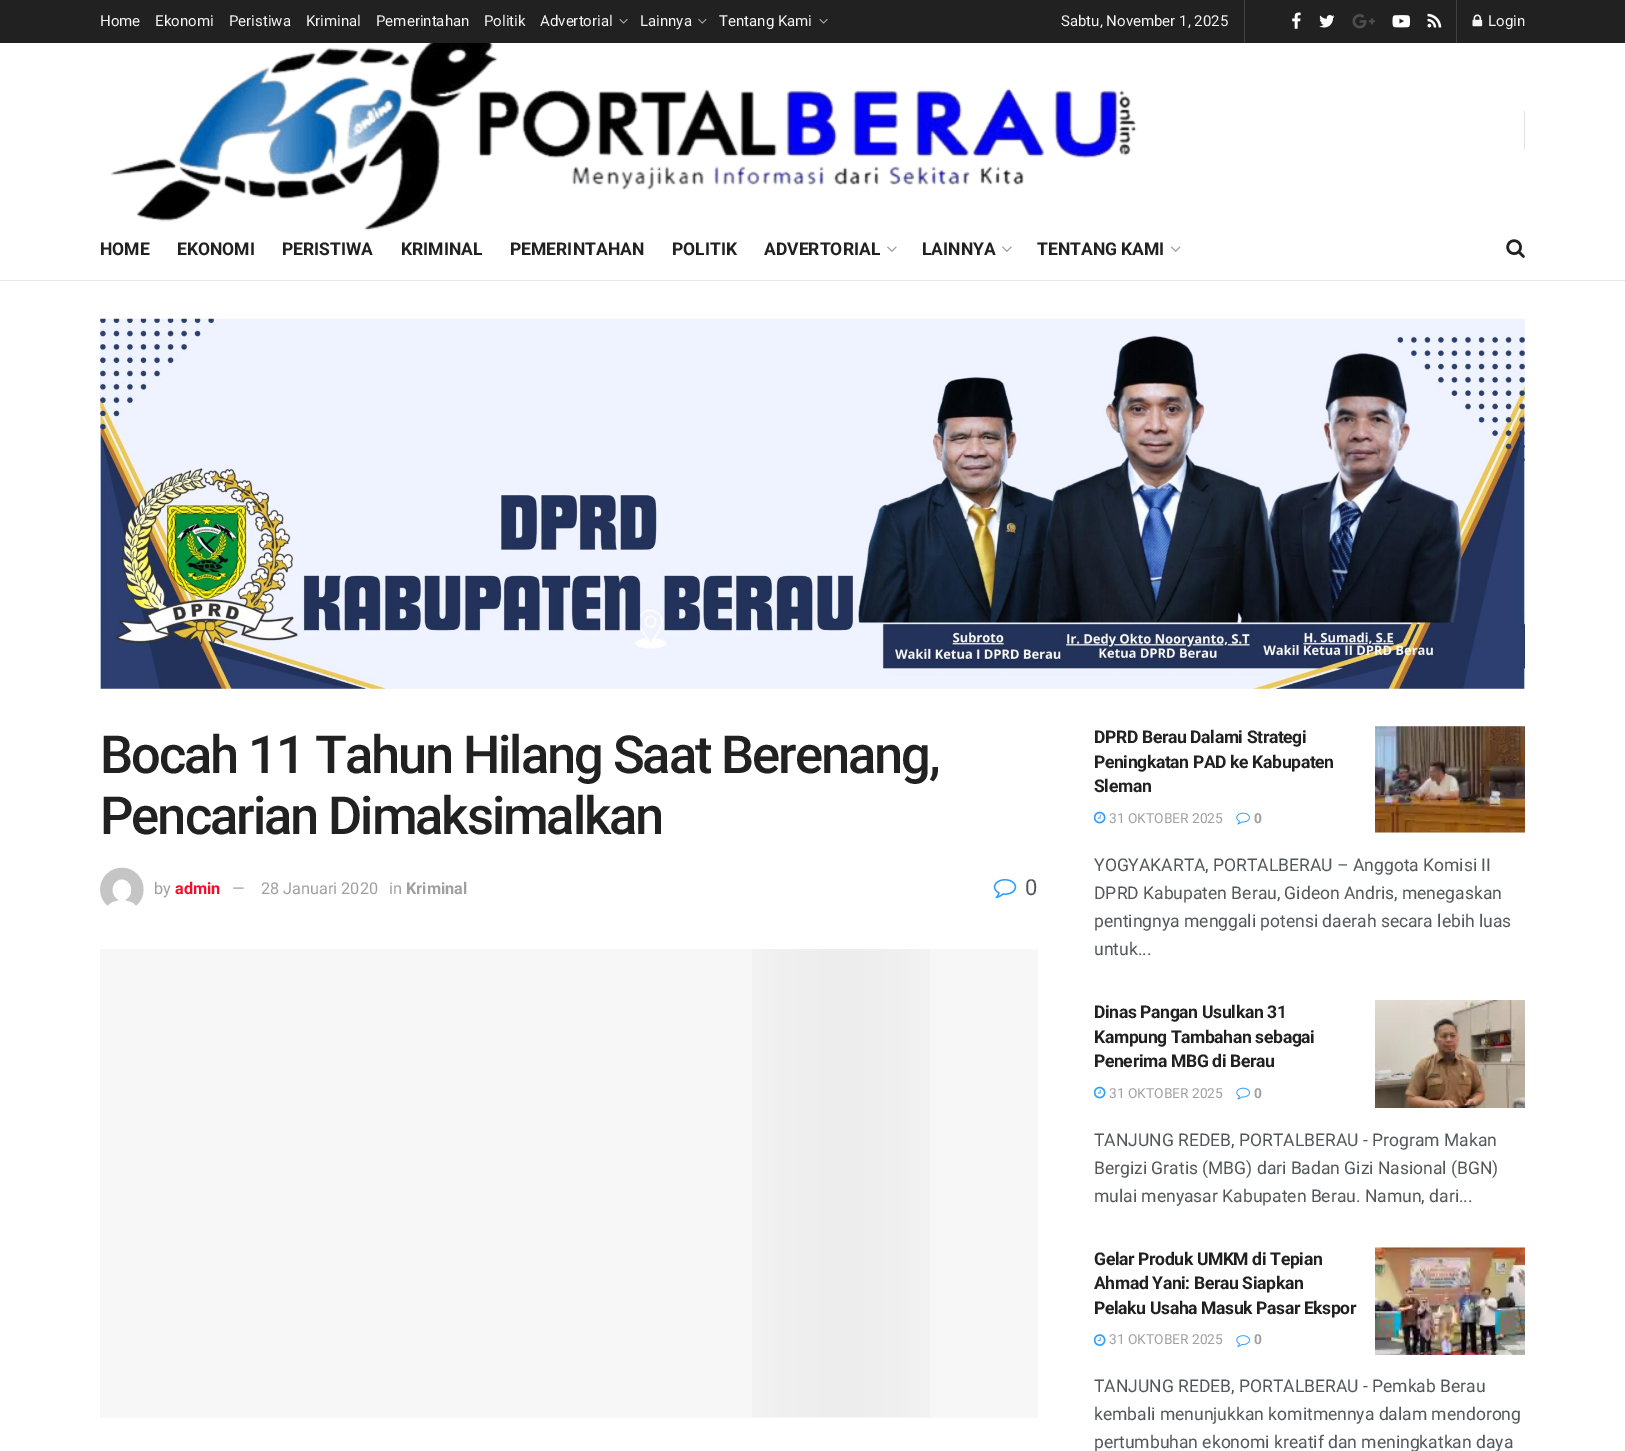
%!PS-Adobe-3.0
%%BoundingBox: 0 0 1625 1451
%%LanguageLevel: 3
%%Pages: 1
%%EndComments
%%BeginProlog
/drawimage { 5 dict begin { /h /w /y /x /name } { exch def } forall
  gsave x y translate w h scale
  w h 8 [w 0 0 h 0 0] name (r) file false 3 colorimage grestore end } def
%%EndProlog
%%BeginSetup
<< /PageSize [1625 1451] >> setpagedevice
%%EndSetup
%%Page: 1 1
0 1451 translate 1 -1 scale
4 setmiterlimit
1 setgray
0 0 1625 1451 rectfill
0.129 setgray
0 0 1625 43 rectfill
0.259 setgray
1456 0 1 43 rectfill
(images/1.raw) 619 19 9 5 drawimage
(images/2.raw) 698 18 9 6 drawimage
(images/1.raw) 819 19 9 5 drawimage
1244 0 1 43 rectfill
(images/3.raw) 1292 12 9 17 drawimage
(images/4.raw) 1319 15 16 13 drawimage
(images/5.raw) 1352 14 23 15 drawimage
(images/6.raw) 1392 15 18 13 drawimage
(images/7.raw) 1427 13 15 15 drawimage
(images/8.raw) 1472 14 11 13 drawimage
(images/9.raw) 110 43 1027 188 drawimage
0.878 setgray
1524 111 1 38 rectfill
0.91 setgray
0 280 1625 1 rectfill
(images/10.raw) 887 246 10 6 drawimage
(images/10.raw) 1002 246 10 6 drawimage
(images/11.raw) 1170 246 11 6 drawimage
(images/12.raw) 1506 239 19 19 drawimage
(images/13.raw) 100 318 1425 371 drawimage
(images/14.raw) 100 867 44 39 drawimage
(images/15.raw) 993 878 24 21 drawimage
0.969 setgray
100 949 938 469 rectfill
(images/16.raw) 752 949 178 468 drawimage
1375 726 150 107 rectfill
(images/17.raw) 1375 726 150 107 drawimage
(images/18.raw) 1094 811 12 13 drawimage
(images/19.raw) 1236 812 14 13 drawimage
(images/20.raw) 1375 1000 150 108 drawimage
(images/18.raw) 1094 1086 12 13 drawimage
(images/19.raw) 1236 1087 14 13 drawimage
0.984 setgray
1375 1247 150 1 rectfill
(images/21.raw) 1375 1247 150 108 drawimage
(images/22.raw) 1094 1334 12 12 drawimage
(images/23.raw) 1236 1335 14 12 drawimage
/Roboto-Regular [15 0 0 -15 0 0] selectfont
0.961 setgray
100 26 moveto (Home) show
155 26 moveto (Ekonomi) show
229 26 moveto (Peristiwa) show
306 26 moveto (Kriminal) show
376 26 moveto (Pemerintahan) show
484 26 moveto (Politik) show
540 26 moveto (Advertorial) show
640 26 moveto (Lainnya) show
719 26 moveto (Tentang Kami) show
1061 26 moveto (Sabtu, November 1, 2025) show
1488 26 moveto (Login) show
/Roboto-Bold [17.5 0 0 -17.5 0 0] selectfont
0.129 setgray
100 255 moveto (HOME) show
177 255 moveto (EKONOMI) show
282 255 moveto (PERISTIWA) show
401 255 moveto (KRIMINAL) show
510 255 moveto (PEMERINTAHAN) show
672 255 moveto (POLITIK) show
764 255 moveto (ADVERTORIAL) show
922 255 moveto (LAINNYA) show
1037 255 moveto (TENTANG KAMI) show
/Roboto-Medium [52.5 0 0 -52.5 0 0] selectfont
100 773 moveto -2.1 0 (Bocah 11 Tahun Hilang Saat Berenang,) ashow
100 834 moveto -2.1 0 (Pencarian Dimaksimalkan) ashow
/Roboto-Regular [16.25 0 0 -16.25 0 0] selectfont
0.627 setgray
154 894 moveto (by) show
/Roboto-Bold [16.25 0 0 -16.25 0 0] selectfont
0.969 0.051 0.157 setrgbcolor
175 894 moveto (admin) show
/Roboto-Regular [16.25 0 0 -16.25 0 0] selectfont
0.627 setgray
232 894 moveto (—) show
261 894 moveto (28 Januari 2020) show
389 894 moveto (in) show
/Roboto-Bold [16.25 0 0 -16.25 0 0] selectfont
406 894 moveto (Kriminal) show
/Roboto-Regular [22 0 0 -22 0 0] selectfont
0.325 0.345 0.361 setrgbcolor
1025 895 moveto (0) show
/Roboto-Bold [17.5 0 0 -17.5 0 0] selectfont
0.129 setgray
1094 743 moveto -0.35 0 (DPRD Berau Dalami Strategi) ashow
1094 768 moveto -0.35 0 (Peningkatan PAD ke Kabupaten) ashow
1094 792 moveto -0.35 0 (Sleman) ashow
/Roboto-Regular [13.75 0 0 -13.75 0 0] selectfont
0.627 setgray
1109 823 moveto (31 OKTOBER 2025) show
/Roboto-Bold [13.75 0 0 -13.75 0 0] selectfont
1254 823 moveto (0) show
/Roboto-Regular [17.5 0 0 -17.5 0 0] selectfont
0.325 0.345 0.361 setrgbcolor
1094 871 moveto (YOGYAKARTA, PORTALBERAU – Anggota Komisi II) show
1094 899 moveto (DPRD Kabupaten Berau, Gideon Andris, menegaskan) show
1094 927 moveto (pentingnya menggali potensi daerah secara lebih luas) show
1094 955 moveto (untuk...) show
/Roboto-Bold [17.5 0 0 -17.5 0 0] selectfont
0.129 setgray
1094 1018 moveto -0.35 0 (Dinas Pangan Usulkan 31) ashow
1094 1043 moveto -0.35 0 (Kampung Tambahan sebagai) ashow
1094 1067 moveto -0.35 0 (Penerima MBG di Berau) ashow
/Roboto-Regular [13.75 0 0 -13.75 0 0] selectfont
0.627 setgray
1109 1098 moveto (31 OKTOBER 2025) show
/Roboto-Bold [13.75 0 0 -13.75 0 0] selectfont
1254 1098 moveto (0) show
/Roboto-Regular [17.5 0 0 -17.5 0 0] selectfont
0.325 0.345 0.361 setrgbcolor
1094 1146 moveto (TANJUNG REDEB, PORTALBERAU - Program Makan) show
1094 1174 moveto (Bergizi Gratis \(MBG\) dari Badan Gizi Nasional \(BGN\)) show
1094 1202 moveto (mulai menyasar Kabupaten Berau. Namun, dari...) show
/Roboto-Bold [17.5 0 0 -17.5 0 0] selectfont
0.129 setgray
1094 1265 moveto -0.35 0 (Gelar Produk UMKM di Tepian) ashow
1094 1289 moveto -0.35 0 (Ahmad Yani: Berau Siapkan) ashow
1094 1314 moveto -0.35 0 (Pelaku Usaha Masuk Pasar Ekspor) ashow
/Roboto-Regular [13.75 0 0 -13.75 0 0] selectfont
0.627 setgray
1109 1344 moveto (31 OKTOBER 2025) show
/Roboto-Bold [13.75 0 0 -13.75 0 0] selectfont
1254 1344 moveto (0) show
/Roboto-Regular [17.5 0 0 -17.5 0 0] selectfont
0.325 0.345 0.361 setrgbcolor
1094 1392 moveto (TANJUNG REDEB, PORTALBERAU - Pemkab Berau) show
1094 1420 moveto (kembali menunjukkan komitmennya dalam mendorong) show
1094 1448 moveto (pertumbuhan ekonomi kreatif dan meningkatkan daya) show
showpage
%%EOF
